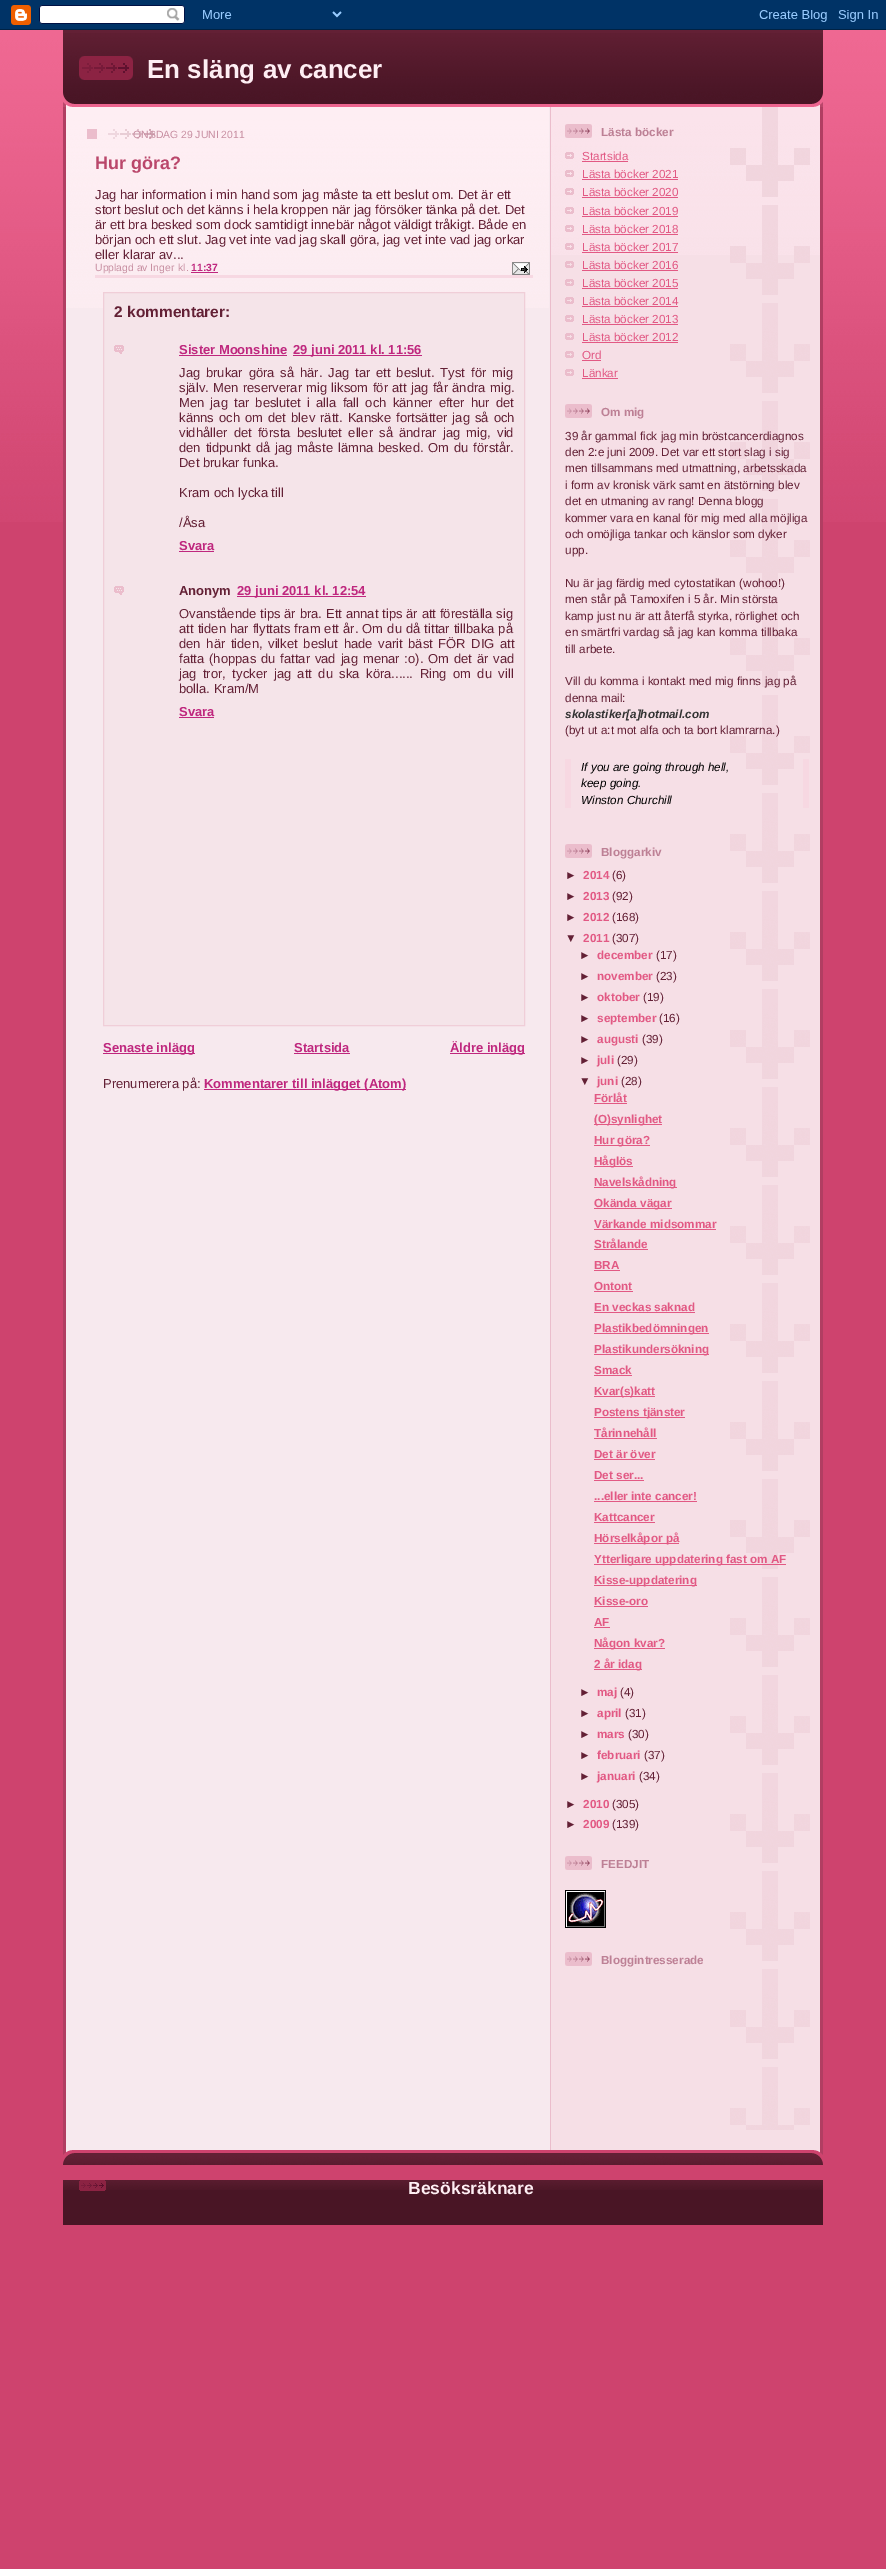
%!PS-Adobe-3.0
%%BoundingBox: 0 0 886 2569
%%LanguageLevel: 3
%%Pages: 1
%%EndComments
%%BeginProlog
/drawimage { 5 dict begin { /h /w /y /x /name } { exch def } forall
  gsave x y translate w h scale
  w h 8 [w 0 0 h 0 0] name (r) file false 3 colorimage grestore end } def
%%EndProlog
%%BeginSetup
<< /PageSize [886 2569] >> setpagedevice
%%EndSetup
%%Page: 1 1
0 2569 translate 1 -1 scale
4 setmiterlimit
0.808 0.263 0.431 setrgbcolor
0 0 886 2569 rectfill
(images/1.raw) 0 30 886 492 drawimage
(images/2.raw) 0 0 886 30 drawimage
(images/3.raw) 63 92 760 15 drawimage
0.388 0.125 0.208 setrgbcolor
63 30 760 3 rectfill
(images/4.raw) 63 33 760 59 drawimage
(images/5.raw) 79 56 54 24 drawimage
(images/6.raw) 63 107 760 2043 drawimage
(images/7.raw) 66 107 483 201 drawimage
0.922 0.741 0.8 setrgbcolor
87 129 10 10 rectfill
(images/8.raw) 108 129 47 10 drawimage
0.969 0.847 0.886 setrgbcolor
95 275 438 3 rectfill
0.749 0.153 0.494 setrgbcolor
191 272 27 1 rectfill
(images/9.raw) 512 262 18 13 drawimage
0.961 0.894 0.914 setrgbcolor
newpath 103.5 292.5 moveto 524.5 292.5 lineto 524.5 1025.5 lineto 103.5 1025.5 lineto closepath gsave fill grestore
0.941 0.808 0.847 setrgbcolor
stroke
(images/10.raw) 114 345 10 9 drawimage
0.749 0.153 0.494 setrgbcolor
179 355 108 1 rectfill
293 355 129 1 rectfill
179 551 35 1 rectfill
(images/10.raw) 114 586 10 9 drawimage
237 596 129 1 rectfill
179 717 35 1 rectfill
103 1053 92 1 rectfill
294 1053 56 1 rectfill
450 1053 75 1 rectfill
204 1089 202 1 rectfill
(images/11.raw) 551 107 269 148 drawimage
(images/12.raw) 730 107 80 2023 drawimage
(images/13.raw) 565 124 27 14 drawimage
(images/14.raw) 565 152 9 7 drawimage
0.886 0.349 0.518 setrgbcolor
582 161 46 1 rectfill
(images/15.raw) 565 170 9 7 drawimage
582 179 96 1 rectfill
(images/16.raw) 565 188 9 7 drawimage
582 197 96 1 rectfill
(images/17.raw) 565 207 9 7 drawimage
582 216 96 1 rectfill
(images/18.raw) 565 225 9 7 drawimage
582 234 96 1 rectfill
(images/19.raw) 565 243 9 7 drawimage
582 252 96 1 rectfill
(images/20.raw) 565 261 9 7 drawimage
582 270 96 1 rectfill
(images/20.raw) 565 279 9 7 drawimage
582 288 96 1 rectfill
(images/20.raw) 565 297 9 7 drawimage
582 306 96 1 rectfill
(images/20.raw) 565 315 9 7 drawimage
582 324 96 1 rectfill
(images/20.raw) 565 333 9 7 drawimage
582 342 96 1 rectfill
(images/20.raw) 565 351 9 7 drawimage
582 360 19 1 rectfill
(images/20.raw) 565 369 9 7 drawimage
582 378 36 1 rectfill
(images/21.raw) 565 404 27 14 drawimage
0.969 0.847 0.886 setrgbcolor
803 759 6 49 rectfill
565 759 6 49 rectfill
(images/21.raw) 565 844 27 14 drawimage
0.886 0.349 0.518 setrgbcolor
594 1103 33 1 rectfill
594 1124 68 1 rectfill
594 1145 56 1 rectfill
594 1166 39 1 rectfill
594 1187 83 1 rectfill
594 1208 78 1 rectfill
594 1229 122 1 rectfill
594 1249 54 1 rectfill
594 1270 26 1 rectfill
594 1291 39 1 rectfill
594 1312 101 1 rectfill
594 1333 115 1 rectfill
594 1354 115 1 rectfill
594 1375 38 1 rectfill
594 1396 61 1 rectfill
594 1417 91 1 rectfill
594 1438 63 1 rectfill
594 1459 61 1 rectfill
594 1480 50 1 rectfill
594 1501 103 1 rectfill
594 1522 61 1 rectfill
594 1543 85 1 rectfill
594 1564 192 1 rectfill
594 1585 103 1 rectfill
594 1606 54 1 rectfill
594 1627 16 1 rectfill
594 1648 71 1 rectfill
594 1669 48 1 rectfill
(images/21.raw) 565 1856 27 14 drawimage
(images/22.raw) 565 1890 41 38 drawimage
(images/21.raw) 565 1952 27 14 drawimage
(images/23.raw) 63 2150 760 15 drawimage
0.286 0.082 0.145 setrgbcolor
63 2190 760 35 rectfill
(images/24.raw) 63 2180 760 10 drawimage
(images/25.raw) 79 2180 27 11 drawimage
/LiberationSans-Bold [26 0 0 -26 0 0] selectfont
0.996 0.933 0.953 setrgbcolor
147 78 moveto (En släng av cancer) show
/LiberationSans-Regular [10.4 0 0 -10.4 0 0] selectfont
0.784 0.561 0.635 setrgbcolor
133 138 moveto (ONSDAG 29 JUNI 2011) show
/LiberationSans-Bold [18 0 0 -18 0 0] selectfont
0.729 0.278 0.42 setrgbcolor
95 169 moveto (Hur göra?) show
/LiberationSans-Regular [13 0 0 -13 0 0] selectfont
0.388 0.125 0.208 setrgbcolor
95 199 moveto (Jag har information i min hand som jag måste ta ett beslut om. Det är ett) show
95 214 moveto (stort beslut och det känns i hela kroppen när jag försöker tänka på det. Det) show
95 229 moveto (är ett bra besked som dock samtidigt innebär något väldigt tråkigt. Både en) show
95 244 moveto (början och ett slut. Jag vet inte vad jag skall göra, jag vet inte vad jag orkar) show
95 259 moveto (eller klarar av...) show
/LiberationSans-Regular [10.4 0 0 -10.4 0 0] selectfont
0.784 0.561 0.635 setrgbcolor
95 271 moveto (Upplagd av Inger) show
178 271 moveto (kl.) show
/LiberationSans-Bold [10.4 0 0 -10.4 0 0] selectfont
0.749 0.153 0.494 setrgbcolor
191 271 moveto (11:37) show
/LiberationSans-Bold [15.5 0 0 -15.5 0 0] selectfont
0.388 0.125 0.208 setrgbcolor
114 317 moveto (2 kommentarer:) show
/LiberationSans-Bold [13 0 0 -13 0 0] selectfont
0.749 0.153 0.494 setrgbcolor
179 354 moveto (Sister Moonshine) show
293 354 moveto (29 juni 2011 kl. 11:56) show
/LiberationSans-Regular [13 0 0 -13 0 0] selectfont
0.388 0.125 0.208 setrgbcolor
179 377 moveto 2.25 0 32 (Jag brukar göra så här. Jag tar ett beslut. Tyst för mig) widthshow
179 392 moveto 0.75 0 32 (själv. Men reserverar mig liksom för att jag får ändra mig.) widthshow
179 407 moveto 2.6 0 32 (Men jag tar beslutet i alla fall och känner efter hur det) widthshow
179 422 moveto 1.5 0 32 (känns och om det blev rätt. Kanske fortsätter jag så och) widthshow
179 437 moveto 2.6 0 32 (vidhåller det första beslutet eller så ändrar jag mig, vid) widthshow
179 452 moveto 1.25 0 32 (den tidpunkt då jag måste lämna besked. Om du förstår.) widthshow
179 467 moveto (Det brukar funka.) show
179 497 moveto (Kram och lycka till) show
179 527 moveto (/Åsa) show
/LiberationSans-Bold [13 0 0 -13 0 0] selectfont
0.749 0.153 0.494 setrgbcolor
179 550 moveto (Svara) show
0.388 0.125 0.208 setrgbcolor
179 595 moveto (Anonym) show
0.749 0.153 0.494 setrgbcolor
237 595 moveto (29 juni 2011 kl. 12:54) show
/LiberationSans-Regular [13 0 0 -13 0 0] selectfont
0.388 0.125 0.208 setrgbcolor
179 618 moveto 0.25 0 32 (Ovanstående tips är bra. Ett annat tips är att föreställa sig) widthshow
179 633 moveto 0.5 0 32 (att tiden har flyttats fram ett år. Om du då tittar tillbaka på) widthshow
179 648 moveto 2 0 32 (den här tiden, vilket beslut hade varit bäst FÖR DIG att) widthshow
179 663 moveto 1.25 0 32 (fatta \(hoppas du fattar vad jag menar :o\). Om det är vad) widthshow
179 678 moveto 2.9 0 32 (jag tror, tycker jag att du ska köra...... Ring om du vill) widthshow
179 693 moveto (bolla. Kram/M) show
/LiberationSans-Bold [13 0 0 -13 0 0] selectfont
0.749 0.153 0.494 setrgbcolor
179 716 moveto (Svara) show
103 1052 moveto (Senaste inlägg) show
294 1052 moveto (Startsida) show
450 1052 moveto (Äldre inlägg) show
/LiberationSans-Regular [13 0 0 -13 0 0] selectfont
0.388 0.125 0.208 setrgbcolor
103 1088 moveto (Prenumerera på:) show
/LiberationSans-Bold [13 0 0 -13 0 0] selectfont
0.749 0.153 0.494 setrgbcolor
204 1088 moveto (Kommentarer till inlägget \(Atom\)) show
/LiberationSans-Bold [11.7 0 0 -11.7 0 0] selectfont
0.741 0.502 0.584 setrgbcolor
601 136 moveto (Lästa böcker) show
/LiberationSans-Regular [11.7 0 0 -11.7 0 0] selectfont
0.886 0.349 0.518 setrgbcolor
582 160 moveto (Startsida) show
582 178 moveto (Lästa böcker 2021) show
582 196 moveto (Lästa böcker 2020) show
582 215 moveto (Lästa böcker 2019) show
582 233 moveto (Lästa böcker 2018) show
582 251 moveto (Lästa böcker 2017) show
582 269 moveto (Lästa böcker 2016) show
582 287 moveto (Lästa böcker 2015) show
582 305 moveto (Lästa böcker 2014) show
582 323 moveto (Lästa böcker 2013) show
582 341 moveto (Lästa böcker 2012) show
582 359 moveto (Ord) show
582 377 moveto (Länkar) show
/LiberationSans-Bold [11.7 0 0 -11.7 0 0] selectfont
0.741 0.502 0.584 setrgbcolor
601 416 moveto (Om mig) show
/LiberationSans-Regular [11.7 0 0 -11.7 0 0] selectfont
0.388 0.125 0.208 setrgbcolor
565 440 moveto (39 år gammal fick jag min bröstcancerdiagnos) show
565 456 moveto (den 2:e juni 2009. Det var ett stort slag i sig) show
565 472 moveto (men tillsammans med utmattning, arbetsskada) show
565 489 moveto (i form av kronisk värk samt en ätstörning blev) show
565 505 moveto (det en utmaning av rang! Denna blogg) show
565 522 moveto (kommer vara en kanal för mig med alla möjliga) show
565 538 moveto (och omöjliga tankar och känslor som dyker) show
565 554 moveto (upp.) show
565 587 moveto (Nu är jag färdig med cytostatikan \(wohoo!\)) show
565 603 moveto (men står på Tamoxifen i 5 år. Min största) show
565 620 moveto (kamp just nu är att återfå styrka, rörlighet och) show
565 636 moveto (en smärtfri vardag så jag kan komma tillbaka) show
565 653 moveto (till arbete.) show
565 685 moveto (Vill du komma i kontakt med mig finns jag på) show
565 702 moveto (denna mail:) show
/LiberationSans-BoldItalic [11.7 0 0 -11.7 0 0] selectfont
0.2 setgray
565 718 moveto (skolastiker[a]hotmail.com) show
/LiberationSans-Regular [11.7 0 0 -11.7 0 0] selectfont
0.388 0.125 0.208 setrgbcolor
565 734 moveto (\(byt ut a:t mot alfa och ta bort klamrarna.\)) show
/LiberationSans-Italic [11.7 0 0 -11.7 0 0] selectfont
0 setgray
581 771 moveto (If you are going through hell,) show
581 787 moveto (keep going.) show
581 804 moveto (Winston Churchill) show
/LiberationSans-Bold [11.7 0 0 -11.7 0 0] selectfont
0.741 0.502 0.584 setrgbcolor
601 856 moveto (Bloggarkiv) show
0.388 0.125 0.208 setrgbcolor
565 879 moveto (►) show
0.886 0.349 0.518 setrgbcolor
583 879 moveto (2014) show
/LiberationSans-Regular [11.7 0 0 -11.7 0 0] selectfont
0.388 0.125 0.208 setrgbcolor
612 879 moveto (\(6\)) show
/LiberationSans-Bold [11.7 0 0 -11.7 0 0] selectfont
565 900 moveto (►) show
0.886 0.349 0.518 setrgbcolor
583 900 moveto (2013) show
/LiberationSans-Regular [11.7 0 0 -11.7 0 0] selectfont
0.388 0.125 0.208 setrgbcolor
612 900 moveto (\(92\)) show
/LiberationSans-Bold [11.7 0 0 -11.7 0 0] selectfont
565 921 moveto (►) show
0.886 0.349 0.518 setrgbcolor
583 921 moveto (2012) show
/LiberationSans-Regular [11.7 0 0 -11.7 0 0] selectfont
0.388 0.125 0.208 setrgbcolor
612 921 moveto (\(168\)) show
/LiberationSans-Bold [11.7 0 0 -11.7 0 0] selectfont
565 942 moveto (▼) show
0.886 0.349 0.518 setrgbcolor
583 942 moveto (2011) show
/LiberationSans-Regular [11.7 0 0 -11.7 0 0] selectfont
0.388 0.125 0.208 setrgbcolor
612 942 moveto (\(307\)) show
/LiberationSans-Bold [11.7 0 0 -11.7 0 0] selectfont
579 959 moveto (►) show
0.886 0.349 0.518 setrgbcolor
597 959 moveto (december) show
/LiberationSans-Regular [11.7 0 0 -11.7 0 0] selectfont
0.388 0.125 0.208 setrgbcolor
656 959 moveto (\(17\)) show
/LiberationSans-Bold [11.7 0 0 -11.7 0 0] selectfont
579 980 moveto (►) show
0.886 0.349 0.518 setrgbcolor
597 980 moveto (november) show
/LiberationSans-Regular [11.7 0 0 -11.7 0 0] selectfont
0.388 0.125 0.208 setrgbcolor
656 980 moveto (\(23\)) show
/LiberationSans-Bold [11.7 0 0 -11.7 0 0] selectfont
579 1001 moveto (►) show
0.886 0.349 0.518 setrgbcolor
597 1001 moveto (oktober) show
/LiberationSans-Regular [11.7 0 0 -11.7 0 0] selectfont
0.388 0.125 0.208 setrgbcolor
643 1001 moveto (\(19\)) show
/LiberationSans-Bold [11.7 0 0 -11.7 0 0] selectfont
579 1022 moveto (►) show
0.886 0.349 0.518 setrgbcolor
597 1022 moveto (september) show
/LiberationSans-Regular [11.7 0 0 -11.7 0 0] selectfont
0.388 0.125 0.208 setrgbcolor
659 1022 moveto (\(16\)) show
/LiberationSans-Bold [11.7 0 0 -11.7 0 0] selectfont
579 1043 moveto (►) show
0.886 0.349 0.518 setrgbcolor
597 1043 moveto (augusti) show
/LiberationSans-Regular [11.7 0 0 -11.7 0 0] selectfont
0.388 0.125 0.208 setrgbcolor
642 1043 moveto (\(39\)) show
/LiberationSans-Bold [11.7 0 0 -11.7 0 0] selectfont
579 1064 moveto (►) show
0.886 0.349 0.518 setrgbcolor
597 1064 moveto (juli) show
/LiberationSans-Regular [11.7 0 0 -11.7 0 0] selectfont
0.388 0.125 0.208 setrgbcolor
617 1064 moveto (\(29\)) show
/LiberationSans-Bold [11.7 0 0 -11.7 0 0] selectfont
579 1085 moveto (▼) show
0.886 0.349 0.518 setrgbcolor
597 1085 moveto (juni) show
/LiberationSans-Regular [11.7 0 0 -11.7 0 0] selectfont
0.388 0.125 0.208 setrgbcolor
621 1085 moveto (\(28\)) show
/LiberationSans-Bold [11.7 0 0 -11.7 0 0] selectfont
0.886 0.349 0.518 setrgbcolor
594 1102 moveto (Förlåt) show
594 1123 moveto (\(O\)synlighet) show
594 1144 moveto (Hur göra?) show
594 1165 moveto (Håglös) show
594 1186 moveto (Navelskådning) show
594 1207 moveto (Okända vägar) show
594 1228 moveto (Värkande midsommar) show
594 1248 moveto (Strålande) show
594 1269 moveto (BRA) show
594 1290 moveto (Ontont) show
594 1311 moveto (En veckas saknad) show
594 1332 moveto (Plastikbedömningen) show
594 1353 moveto (Plastikundersökning) show
594 1374 moveto (Smack) show
594 1395 moveto (Kvar\(s\)katt) show
594 1416 moveto (Postens tjänster) show
594 1437 moveto (Tårinnehåll) show
594 1458 moveto (Det är över) show
594 1479 moveto (Det ser...) show
594 1500 moveto (...eller inte cancer!) show
594 1521 moveto (Kattcancer) show
594 1542 moveto (Hörselkåpor på) show
594 1563 moveto (Ytterligare uppdatering fast om AF) show
594 1584 moveto (Kisse-uppdatering) show
594 1605 moveto (Kisse-oro) show
594 1626 moveto (AF) show
594 1647 moveto (Någon kvar?) show
594 1668 moveto (2 år idag) show
0.388 0.125 0.208 setrgbcolor
579 1696 moveto (►) show
0.886 0.349 0.518 setrgbcolor
597 1696 moveto (maj) show
/LiberationSans-Regular [11.7 0 0 -11.7 0 0] selectfont
0.388 0.125 0.208 setrgbcolor
620 1696 moveto (\(4\)) show
/LiberationSans-Bold [11.7 0 0 -11.7 0 0] selectfont
579 1717 moveto (►) show
0.886 0.349 0.518 setrgbcolor
597 1717 moveto (april) show
/LiberationSans-Regular [11.7 0 0 -11.7 0 0] selectfont
0.388 0.125 0.208 setrgbcolor
625 1717 moveto (\(31\)) show
/LiberationSans-Bold [11.7 0 0 -11.7 0 0] selectfont
579 1738 moveto (►) show
0.886 0.349 0.518 setrgbcolor
597 1738 moveto (mars) show
/LiberationSans-Regular [11.7 0 0 -11.7 0 0] selectfont
0.388 0.125 0.208 setrgbcolor
628 1738 moveto (\(30\)) show
/LiberationSans-Bold [11.7 0 0 -11.7 0 0] selectfont
579 1759 moveto (►) show
0.886 0.349 0.518 setrgbcolor
597 1759 moveto (februari) show
/LiberationSans-Regular [11.7 0 0 -11.7 0 0] selectfont
0.388 0.125 0.208 setrgbcolor
644 1759 moveto (\(37\)) show
/LiberationSans-Bold [11.7 0 0 -11.7 0 0] selectfont
579 1780 moveto (►) show
0.886 0.349 0.518 setrgbcolor
597 1780 moveto (januari) show
/LiberationSans-Regular [11.7 0 0 -11.7 0 0] selectfont
0.388 0.125 0.208 setrgbcolor
639 1780 moveto (\(34\)) show
/LiberationSans-Bold [11.7 0 0 -11.7 0 0] selectfont
565 1808 moveto (►) show
0.886 0.349 0.518 setrgbcolor
583 1808 moveto (2010) show
/LiberationSans-Regular [11.7 0 0 -11.7 0 0] selectfont
0.388 0.125 0.208 setrgbcolor
612 1808 moveto (\(305\)) show
/LiberationSans-Bold [11.7 0 0 -11.7 0 0] selectfont
565 1828 moveto (►) show
0.886 0.349 0.518 setrgbcolor
583 1828 moveto (2009) show
/LiberationSans-Regular [11.7 0 0 -11.7 0 0] selectfont
0.388 0.125 0.208 setrgbcolor
612 1828 moveto (\(139\)) show
/LiberationSans-Bold [11.7 0 0 -11.7 0 0] selectfont
0.741 0.502 0.584 setrgbcolor
601 1868 moveto (FEEDJIT) show
601 1964 moveto (Bloggintresserade) show
/LiberationSans-Bold [17.5 0 0 -17.5 0 0] selectfont
0.996 0.933 0.953 setrgbcolor
408 2194 moveto (Besöksräknare) show
showpage
%%EOF
